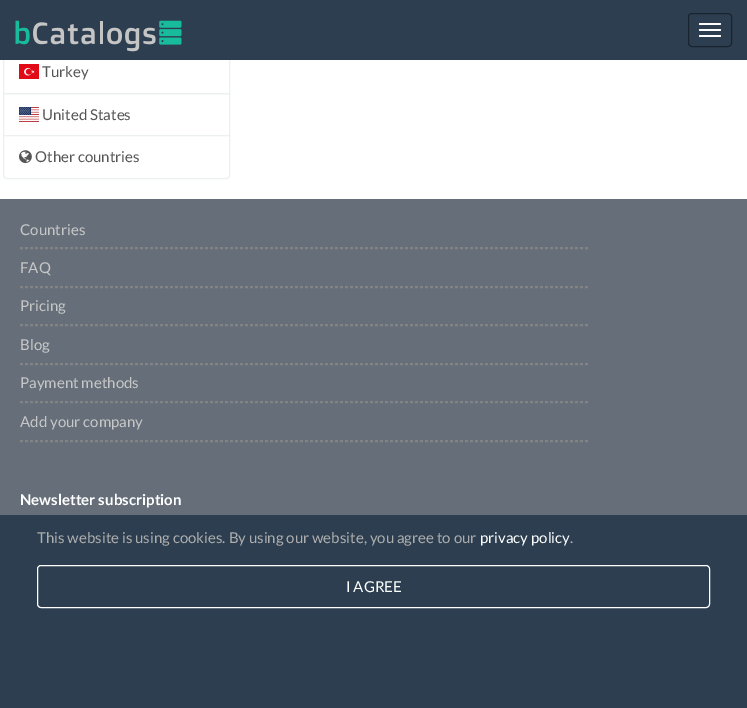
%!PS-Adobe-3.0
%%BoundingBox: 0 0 747 708
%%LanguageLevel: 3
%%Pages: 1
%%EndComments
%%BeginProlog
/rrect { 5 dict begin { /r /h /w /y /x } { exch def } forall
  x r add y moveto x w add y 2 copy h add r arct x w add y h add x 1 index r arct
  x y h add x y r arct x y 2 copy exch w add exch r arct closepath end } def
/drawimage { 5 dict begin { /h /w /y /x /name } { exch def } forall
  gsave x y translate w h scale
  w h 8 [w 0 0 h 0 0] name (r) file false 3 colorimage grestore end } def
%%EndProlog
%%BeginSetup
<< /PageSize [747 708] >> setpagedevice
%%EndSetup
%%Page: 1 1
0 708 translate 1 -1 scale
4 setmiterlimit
1 setgray
0 0 747 708 rectfill
0.925 0.941 0.945 setrgbcolor
3.5 50.5 226 43 rectstroke
0.173 0.243 0.314 setrgbcolor
0 0 747 60 rectfill
(images/1.raw) 15 20 167 32 drawimage
0.102 0.141 0.184 setrgbcolor
688.5 13.5 43 33 3.5 rrect stroke
1 setgray
699 23 22 2 1 rrect fill
699 29 22 2 1 rrect fill
699 35 22 2 1 rrect fill
(images/2.raw) 19 64 20 15 drawimage
0.925 0.941 0.945 setrgbcolor
3.5 93.5 226 42 rectstroke
(images/3.raw) 19 107 20 15 drawimage
1 setgray
newpath 3.5 135.5 moveto 229.5 135.5 lineto 229.5 175 lineto 229.5 177 228 178.5 226 178.5 curveto 7 178.5 lineto 5 178.5 3.5 177 3.5 175 curveto closepath gsave fill grestore
0.925 0.941 0.945 setrgbcolor
stroke
(images/4.raw) 19 150 13 14 drawimage
0.4 0.435 0.475 setrgbcolor
0 199 747 316 rectfill
0.51 0.514 0.518 setrgbcolor
[3 2] 0 setdash
newpath 20 247.5 moveto 588 247.5 lineto stroke
587 247 1 2 rectfill
newpath 20 248.5 moveto 588 248.5 lineto stroke
newpath 20 286.5 moveto 588 286.5 lineto stroke
587 286 1 2 rectfill
newpath 20 287.5 moveto 588 287.5 lineto stroke
newpath 20 324.5 moveto 588 324.5 lineto stroke
587 324 1 2 rectfill
newpath 20 325.5 moveto 588 325.5 lineto stroke
newpath 20 363.5 moveto 588 363.5 lineto stroke
587 363 1 2 rectfill
newpath 20 364.5 moveto 588 364.5 lineto stroke
newpath 20 401.5 moveto 588 401.5 lineto stroke
587 401 1 2 rectfill
newpath 20 402.5 moveto 588 402.5 lineto stroke
newpath 20 440.5 moveto 588 440.5 lineto stroke
587 440 1 2 rectfill
newpath 20 441.5 moveto 588 441.5 lineto stroke
0.173 0.243 0.314 setrgbcolor
0 515 747 193 rectfill
1 setgray
[] 0 setdash
37.5 565.5 672 42 3.5 rrect stroke
/Lato-Regular [15 0 0 -15 0 0] selectfont
0.333 setgray
42 77 moveto (Turkey) show
42 120 moveto (United States) show
35 162 moveto (Other countries) show
0.78 setgray
20 235 moveto (Countries) show
20 273 moveto (FAQ) show
20 311 moveto (Pricing) show
20 350 moveto (Blog) show
20 388 moveto (Payment methods) show
20 427 moveto (Add your company) show
/Lato-Bold [15 0 0 -15 0 0] selectfont
1 setgray
20 505 moveto (Newsletter subscription) show
/Lato-Regular [15 0 0 -15 0 0] selectfont
0.678 setgray
37 543 moveto (This website is using cookies. By using our website, you agree to our) show
1 setgray
480 543 moveto (privacy policy) show
0.678 setgray
570 543 moveto (.) show
1 setgray
346 592 moveto (I AGREE) show
showpage
%%EOF
